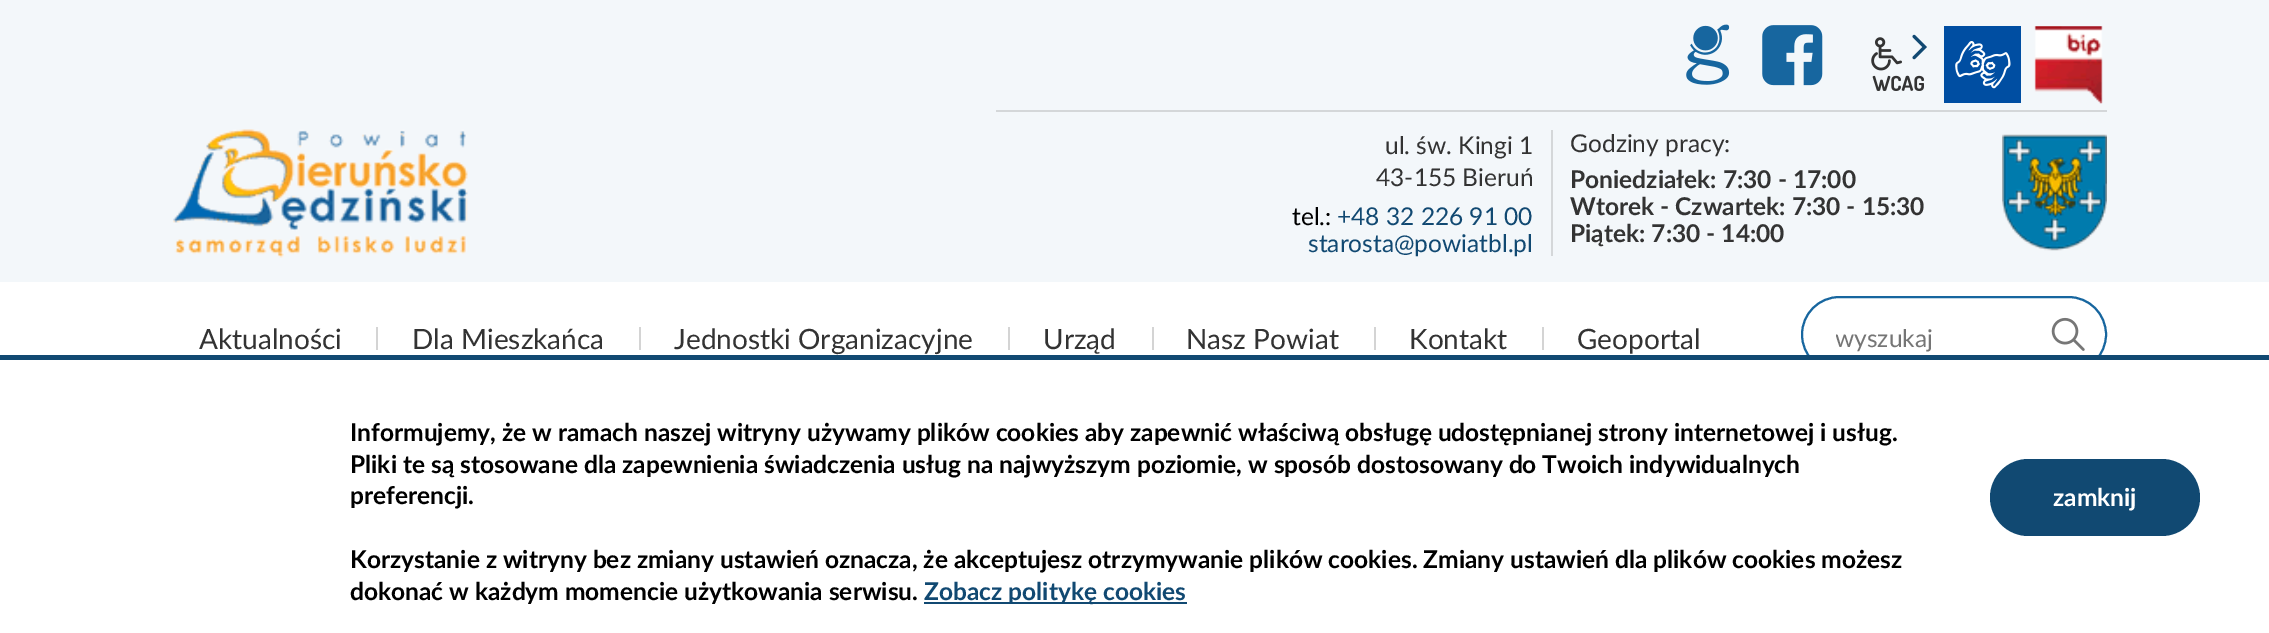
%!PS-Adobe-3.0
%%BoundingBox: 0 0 2269 633
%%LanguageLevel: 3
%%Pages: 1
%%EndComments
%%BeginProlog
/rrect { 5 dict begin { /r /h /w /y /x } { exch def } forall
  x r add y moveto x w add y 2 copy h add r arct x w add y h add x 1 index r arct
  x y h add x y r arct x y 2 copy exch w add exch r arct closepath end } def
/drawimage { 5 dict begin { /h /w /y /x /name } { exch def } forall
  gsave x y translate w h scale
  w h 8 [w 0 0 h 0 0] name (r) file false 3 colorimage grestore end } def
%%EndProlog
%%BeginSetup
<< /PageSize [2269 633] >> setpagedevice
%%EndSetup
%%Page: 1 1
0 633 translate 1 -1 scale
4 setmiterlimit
0.953 0.969 0.98 setrgbcolor
0 0 2269 633 rectfill
(images/1.raw) 173 129 295 129 drawimage
(images/2.raw) 1686 24 44 61 drawimage
(images/3.raw) 1762 25 61 61 drawimage
(images/5.raw) 1871 37 53 54 drawimage
(images/4.raw) 1912 34 15 26 drawimage
0 0.306 0.635 setrgbcolor
1944 26 77 77 rectfill
(images/6.raw) 1955 41 56 48 drawimage
(images/7.raw) 2034 26 69 78 drawimage
0.831 0.843 0.851 setrgbcolor
996 110 1111 2 rectfill
(images/8.raw) 2002 134 105 117 drawimage
1551 130 2 126 rectfill
1 setgray
0 282 2269 73 rectfill
0.831 setgray
376 327 2 23 rectfill
639 327 2 23 rectfill
1008 327 2 23 rectfill
1152 327 2 23 rectfill
1374 327 2 23 rectfill
1542 327 2 23 rectfill
0.09 0.4 0.624 setrgbcolor
2 setlinewidth
1802 297 304 75 37.5 rrect stroke
(images/9.raw) 2051 317 34 34 drawimage
1 setgray
0 360 2269 273 rectfill
0.067 0.286 0.447 setrgbcolor
0 355 2269 5 rectfill
924 602 263 2 rectfill
1990 459 210 77 38.5 rrect fill
/Lato-Regular [24.5 0 0 -24.5 0 0] selectfont
0.2 setgray
1385 154 moveto (ul. św. Kingi 1) show
1376 186 moveto (43-155 Bieruń) show
0 setgray
1292 225 moveto (tel.:) show
0.067 0.286 0.447 setrgbcolor
1337 225 moveto (+48 32 226 91 00) show
1308 252 moveto (starosta@powiatbl.pl) show
0.2 setgray
1570 152 moveto (Godziny pracy:) show
/Lato-Bold [24.5 0 0 -24.5 0 0] selectfont
1570 188 moveto (Poniedziałek: 7:30 - 17:00) show
1570 215 moveto (Wtorek - Czwartek: 7:30 - 15:30) show
1570 242 moveto (Piątek: 7:30 - 14:00) show
/Lato-Regular [28 0 0 -28 0 0] selectfont
199 349 moveto (Aktualności) show
412 349 moveto (Dla Mieszkańca) show
674 349 moveto (Jednostki Organizacyjne) show
1043 349 moveto (Urząd) show
1186 349 moveto (Nasz Powiat) show
1409 349 moveto (Kontakt) show
1577 349 moveto (Geoportal) show
gsave
1836 322 192 30 rectclip
/Lato-Regular [24.5 0 0 -24.5 0 0] selectfont
0.459 setgray
1835 347 moveto (wyszukaj) show
grestore
/Lato-Bold [24.5 0 0 -24.5 0 0] selectfont
0 setgray
350 441 moveto (Informujemy, że w ramach naszej witryny używamy plików cookies aby zapewnić właściwą obsługę udostępnianej strony internetowej i usług.) show
350 473 moveto (Pliki te są stosowane dla zapewnienia świadczenia usług na najwyższym poziomie, w sposób dostosowany do Twoich indywidualnych) show
350 504 moveto (preferencji.) show
350 568 moveto (Korzystanie z witryny bez zmiany ustawień oznacza, że akceptujesz otrzymywanie plików cookies. Zmiany ustawień dla plików cookies możesz) show
350 600 moveto (dokonać w każdym momencie użytkowania serwisu.) show
0.067 0.286 0.447 setrgbcolor
924 600 moveto (Zobacz politykę cookies) show
1 setgray
2053 506 moveto (zamknij) show
showpage
%%EOF
